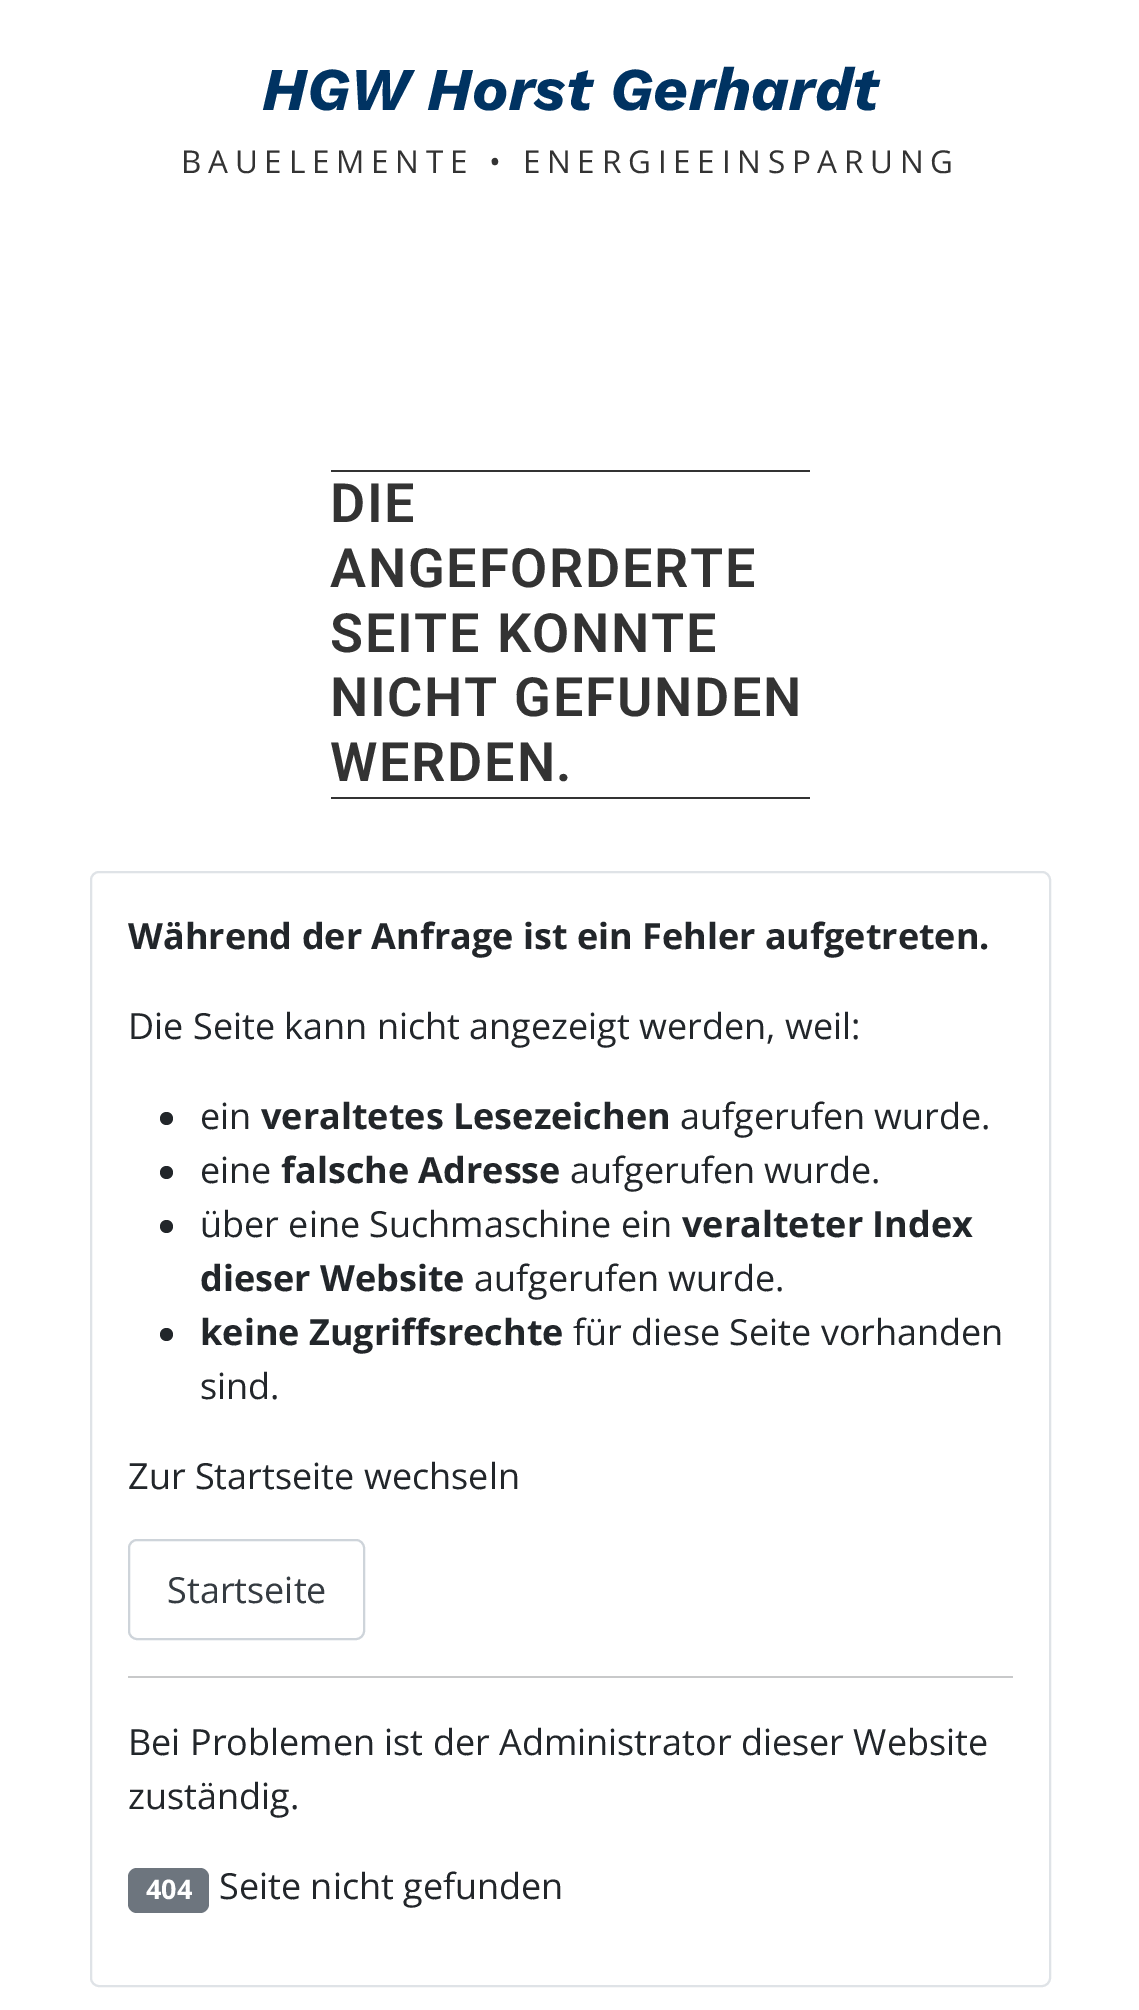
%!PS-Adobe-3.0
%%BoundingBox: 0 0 1139 2010
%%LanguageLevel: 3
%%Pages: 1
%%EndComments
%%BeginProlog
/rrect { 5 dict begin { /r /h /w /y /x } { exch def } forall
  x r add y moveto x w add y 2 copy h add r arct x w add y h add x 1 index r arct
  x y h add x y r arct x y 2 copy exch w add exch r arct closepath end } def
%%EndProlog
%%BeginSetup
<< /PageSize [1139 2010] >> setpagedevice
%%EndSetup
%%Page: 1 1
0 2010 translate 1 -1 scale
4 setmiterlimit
1 setgray
0 0 1139 2010 rectfill
0.2 setgray
331 470 479 2 rectfill
331 797 479 2 rectfill
0.875 0.89 0.906 setrgbcolor
2 setlinewidth
91 872 959 1114 8 rrect stroke
0.133 0.149 0.165 setrgbcolor
newpath 166.5 1118.5 6.5 0 360 arc closepath fill
newpath 166.5 1172.5 6.5 0 360 arc closepath fill
newpath 166.5 1226.5 6.5 0 360 arc closepath fill
newpath 166.5 1334.5 6.5 0 360 arc closepath fill
0.808 0.831 0.855 setrgbcolor
129 1540 235 99 8 rrect stroke
0.784 0.788 0.792 setrgbcolor
128 1676 885 2 rectfill
0.427 0.459 0.494 setrgbcolor
128 1868 81 45 9 rrect fill
/WorkSans-BoldItalic [60.75 0 0 -60.75 0 0] selectfont
0 0.2 0.384 setrgbcolor
262 110 moveto (HGW Horst Gerhardt) show
/OpenSans-Regular [31.5 0 0 -31.5 0 0] selectfont
0.2 setgray
181 173 moveto 6.75 0 (BAUELEMENTE • ENERGIEEINSPARUNG) ashow
/Roboto-SemiBold [54 0 0 -54 0 0] selectfont
330 522 moveto 1.75 0 (DIE) ashow
330 587 moveto 1.75 0 (ANGEFORDERTE) ashow
330 652 moveto 1.75 0 (SEITE KONNTE) ashow
330 716 moveto 1.75 0 (NICHT GEFUNDEN) ashow
330 781 moveto 1.75 0 (WERDEN.) ashow
/OpenSans-Bold [36 0 0 -36 0 0] selectfont
0.133 0.149 0.165 setrgbcolor
128 949 moveto (Während der Anfrage ist ein Fehler aufgetreten.) show
/OpenSans-Regular [36 0 0 -36 0 0] selectfont
128 1039 moveto (Die Seite kann nicht angezeigt werden, weil:) show
200 1129 moveto (ein) show
/OpenSans-Bold [36 0 0 -36 0 0] selectfont
261 1129 moveto (veraltetes Lesezeichen) show
/OpenSans-Regular [36 0 0 -36 0 0] selectfont
680 1129 moveto (aufgerufen wurde.) show
200 1183 moveto (eine) show
/OpenSans-Bold [36 0 0 -36 0 0] selectfont
281 1183 moveto (falsche Adresse) show
/OpenSans-Regular [36 0 0 -36 0 0] selectfont
570 1183 moveto (aufgerufen wurde.) show
200 1237 moveto (über eine Suchmaschine ein) show
/OpenSans-Bold [36 0 0 -36 0 0] selectfont
682 1237 moveto (veralteter Index) show
200 1291 moveto (dieser Website) show
/OpenSans-Regular [36 0 0 -36 0 0] selectfont
474 1291 moveto (aufgerufen wurde.) show
/OpenSans-Bold [36 0 0 -36 0 0] selectfont
200 1345 moveto (keine Zugriffsrechte) show
/OpenSans-Regular [36 0 0 -36 0 0] selectfont
573 1345 moveto (für diese Seite vorhanden) show
200 1399 moveto (sind.) show
128 1489 moveto (Zur Startseite wechseln) show
0.208 0.231 0.255 setrgbcolor
167 1603 moveto (Startseite) show
0.133 0.149 0.165 setrgbcolor
128 1755 moveto (Bei Problemen ist der Administrator dieser Website) show
128 1809 moveto (zuständig.) show
/OpenSans-Bold [27 0 0 -27 0 0] selectfont
1 setgray
146 1899 moveto (404) show
/OpenSans-Regular [36 0 0 -36 0 0] selectfont
0.133 0.149 0.165 setrgbcolor
219 1899 moveto (Seite nicht gefunden) show
showpage
%%EOF
